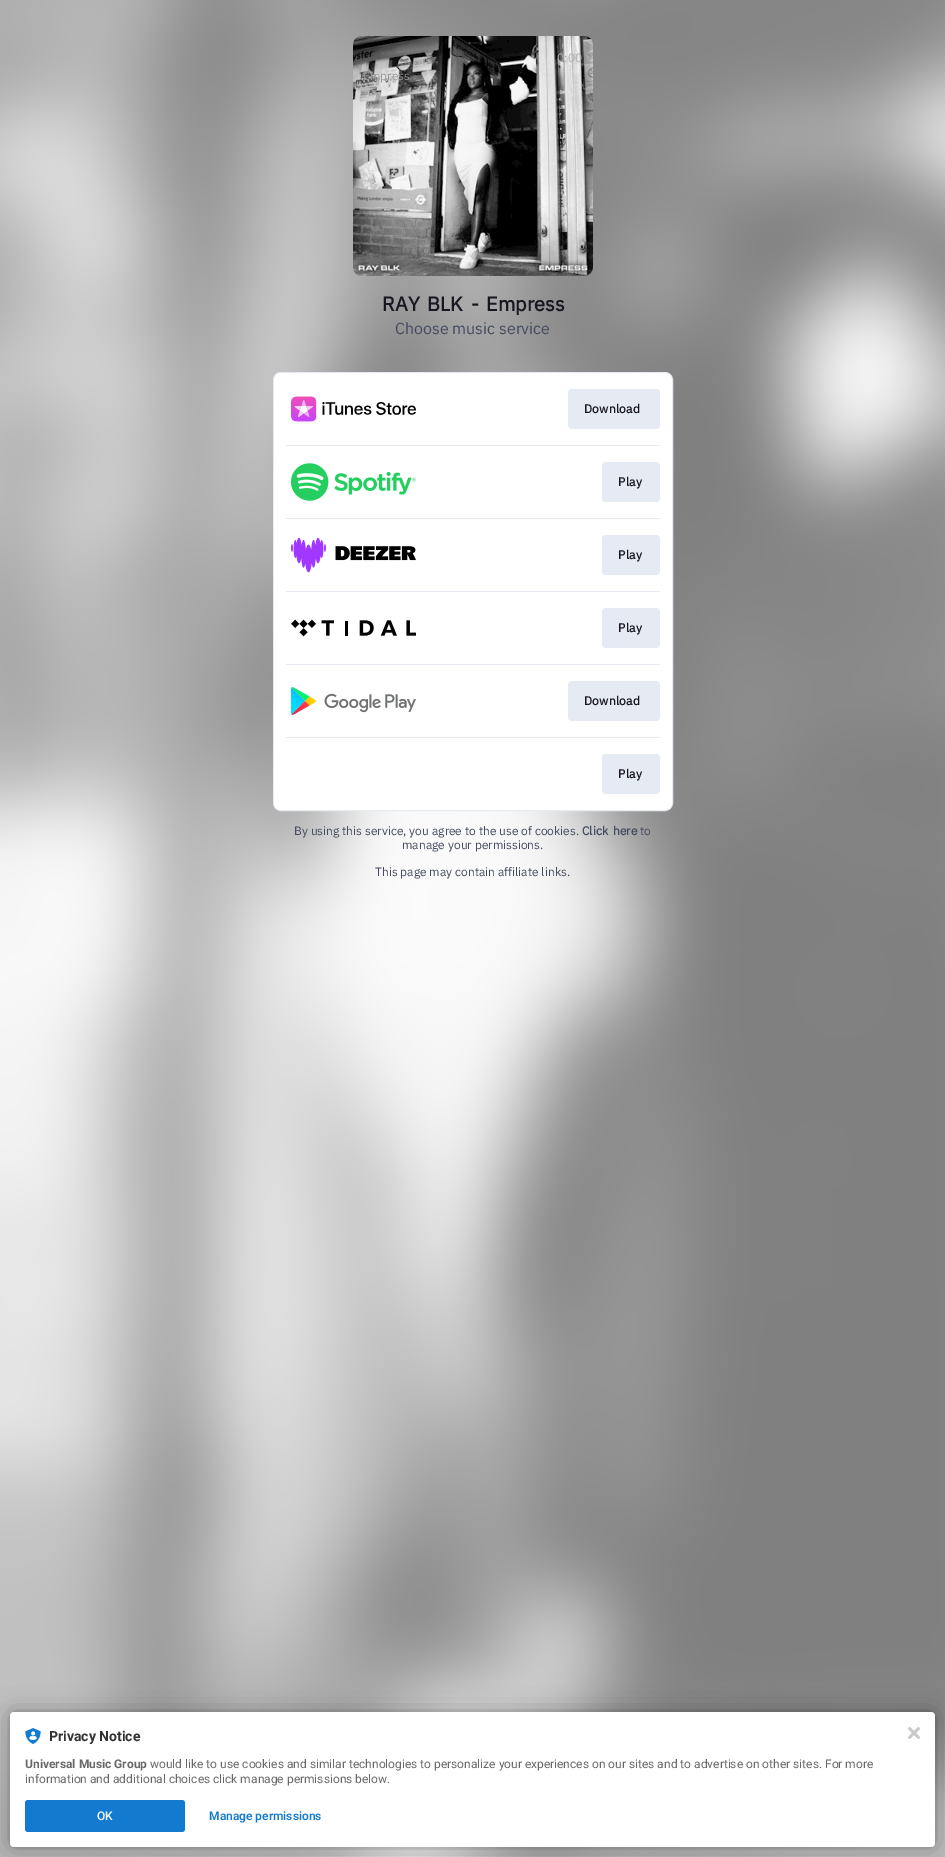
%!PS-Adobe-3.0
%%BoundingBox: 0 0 945 1857
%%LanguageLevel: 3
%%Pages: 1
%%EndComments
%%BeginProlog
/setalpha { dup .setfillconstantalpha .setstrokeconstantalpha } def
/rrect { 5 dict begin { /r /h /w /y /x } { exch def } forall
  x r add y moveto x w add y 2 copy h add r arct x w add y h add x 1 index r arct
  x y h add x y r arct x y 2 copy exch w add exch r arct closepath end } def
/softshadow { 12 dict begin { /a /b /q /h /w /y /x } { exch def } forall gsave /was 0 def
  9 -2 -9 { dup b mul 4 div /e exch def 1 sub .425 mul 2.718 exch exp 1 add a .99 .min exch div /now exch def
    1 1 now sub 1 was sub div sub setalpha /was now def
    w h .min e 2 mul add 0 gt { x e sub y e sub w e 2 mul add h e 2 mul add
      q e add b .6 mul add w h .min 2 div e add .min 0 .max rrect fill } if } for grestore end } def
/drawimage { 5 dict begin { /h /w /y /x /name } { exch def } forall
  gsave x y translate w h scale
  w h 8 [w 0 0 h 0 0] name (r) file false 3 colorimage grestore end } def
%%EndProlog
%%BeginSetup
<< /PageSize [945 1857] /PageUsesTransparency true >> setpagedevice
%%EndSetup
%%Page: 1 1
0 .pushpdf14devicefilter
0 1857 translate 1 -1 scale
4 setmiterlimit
1 setgray
0 0 945 1857 rectfill
(images/1.raw) 0 0 945 1857 drawimage
(images/2.raw) 353 36 240 240 drawimage
0.902 0.918 0.949 setrgbcolor
273.5 372.5 399 438 7.5 rrect stroke
1 setgray
274 373 398 437 7 rrect fill
(images/3.raw) 291 396 125 26 drawimage
0.902 0.918 0.949 setrgbcolor
568 389 92 40 4 rrect fill
286 445 374 1 rectfill
(images/4.raw) 291 463 125 38 drawimage
602 462 58 40 4 rrect fill
286 518 374 1 rectfill
(images/5.raw) 291 537 125 36 drawimage
602 535 58 40 4 rrect fill
286 591 374 1 rectfill
(images/6.raw) 291 619 125 18 drawimage
602 608 58 40 4 rrect fill
286 664 374 1 rectfill
(images/7.raw) 291 687 125 28 drawimage
568 681 92 40 4 rrect fill
286 737 374 1 rectfill
602 754 58 40 4 rrect fill
0 setgray
10 1712 925 135 4 2 0.12 softshadow
10 1712 925 135 4 12 0.3 softshadow
1 setgray
10 1712 925 135 4 rrect fill
(images/8.raw) 25 1728 16 16 drawimage
0.075 0.482 0.812 setrgbcolor
25 1800 160 32 3 rrect fill
(images/9.raw) 908 1727 12 12 drawimage
/IBMPlexSans-Regular [12 0 0 -12 0 0] selectfont
0.69 setgray
557 62 moveto (0:00) show
0.588 setgray
363 80 moveto (Empress) show
/IBMPlexSans-Bold [20 0 0 -20 0 0] selectfont
0.094 0.09 0.129 setrgbcolor
382 311 moveto 3 0 32 (RAY BLK - Empress) widthshow
/IBMPlexSans-Regular [16 0 0 -16 0 0] selectfont
0.271 0.294 0.373 setrgbcolor
395 334 moveto (Choose music service) show
/IBMPlexSans-Bold [12 0 0 -12 0 0] selectfont
0.094 0.09 0.129 setrgbcolor
584 413 moveto 0.25 0 (Download) ashow
618 486 moveto 0.25 0 (Play) ashow
618 559 moveto 0.25 0 (Play) ashow
618 632 moveto 0.25 0 (Play) ashow
584 705 moveto 0.25 0 (Download) ashow
618 778 moveto 0.25 0 (Play) ashow
/IBMPlexSans-Regular [12 0 0 -12 0 0] selectfont
0.271 0.294 0.373 setrgbcolor
294 835 moveto (By using this service, you agree to the use of cookies.) show
/IBMPlexSans-Bold [12 0 0 -12 0 0] selectfont
582 835 moveto 2 0 32 (Click here) widthshow
/IBMPlexSans-Regular [12 0 0 -12 0 0] selectfont
640 835 moveto (to) show
402 849 moveto (manage your permissions.) show
375 876 moveto (This page may contain affiliate links.) show
/Roboto-Bold [14 0 0 -14 0 0] selectfont
0.196 setgray
49 1741 moveto (Privacy Notice) show
/Roboto-Bold [12 0 0 -12 0 0] selectfont
0.408 setgray
25 1768 moveto (Universal Music Group) show
/Roboto-Regular [12 0 0 -12 0 0] selectfont
150 1768 moveto (would like to use cookies and similar technologies to personalize your experiences on our sites and to advertise on other sites. For more) show
25 1783 moveto (information and additional choices click manage permissions below.) show
/Roboto-Medium [12 0 0 -12 0 0] selectfont
1 setgray
97 1820 moveto (OK) show
/Roboto-SemiBold [12 0 0 -12 0 0] selectfont
0.075 0.482 0.812 setrgbcolor
209 1820 moveto (Manage permissions) show
.poppdf14devicefilter showpage
%%EOF
